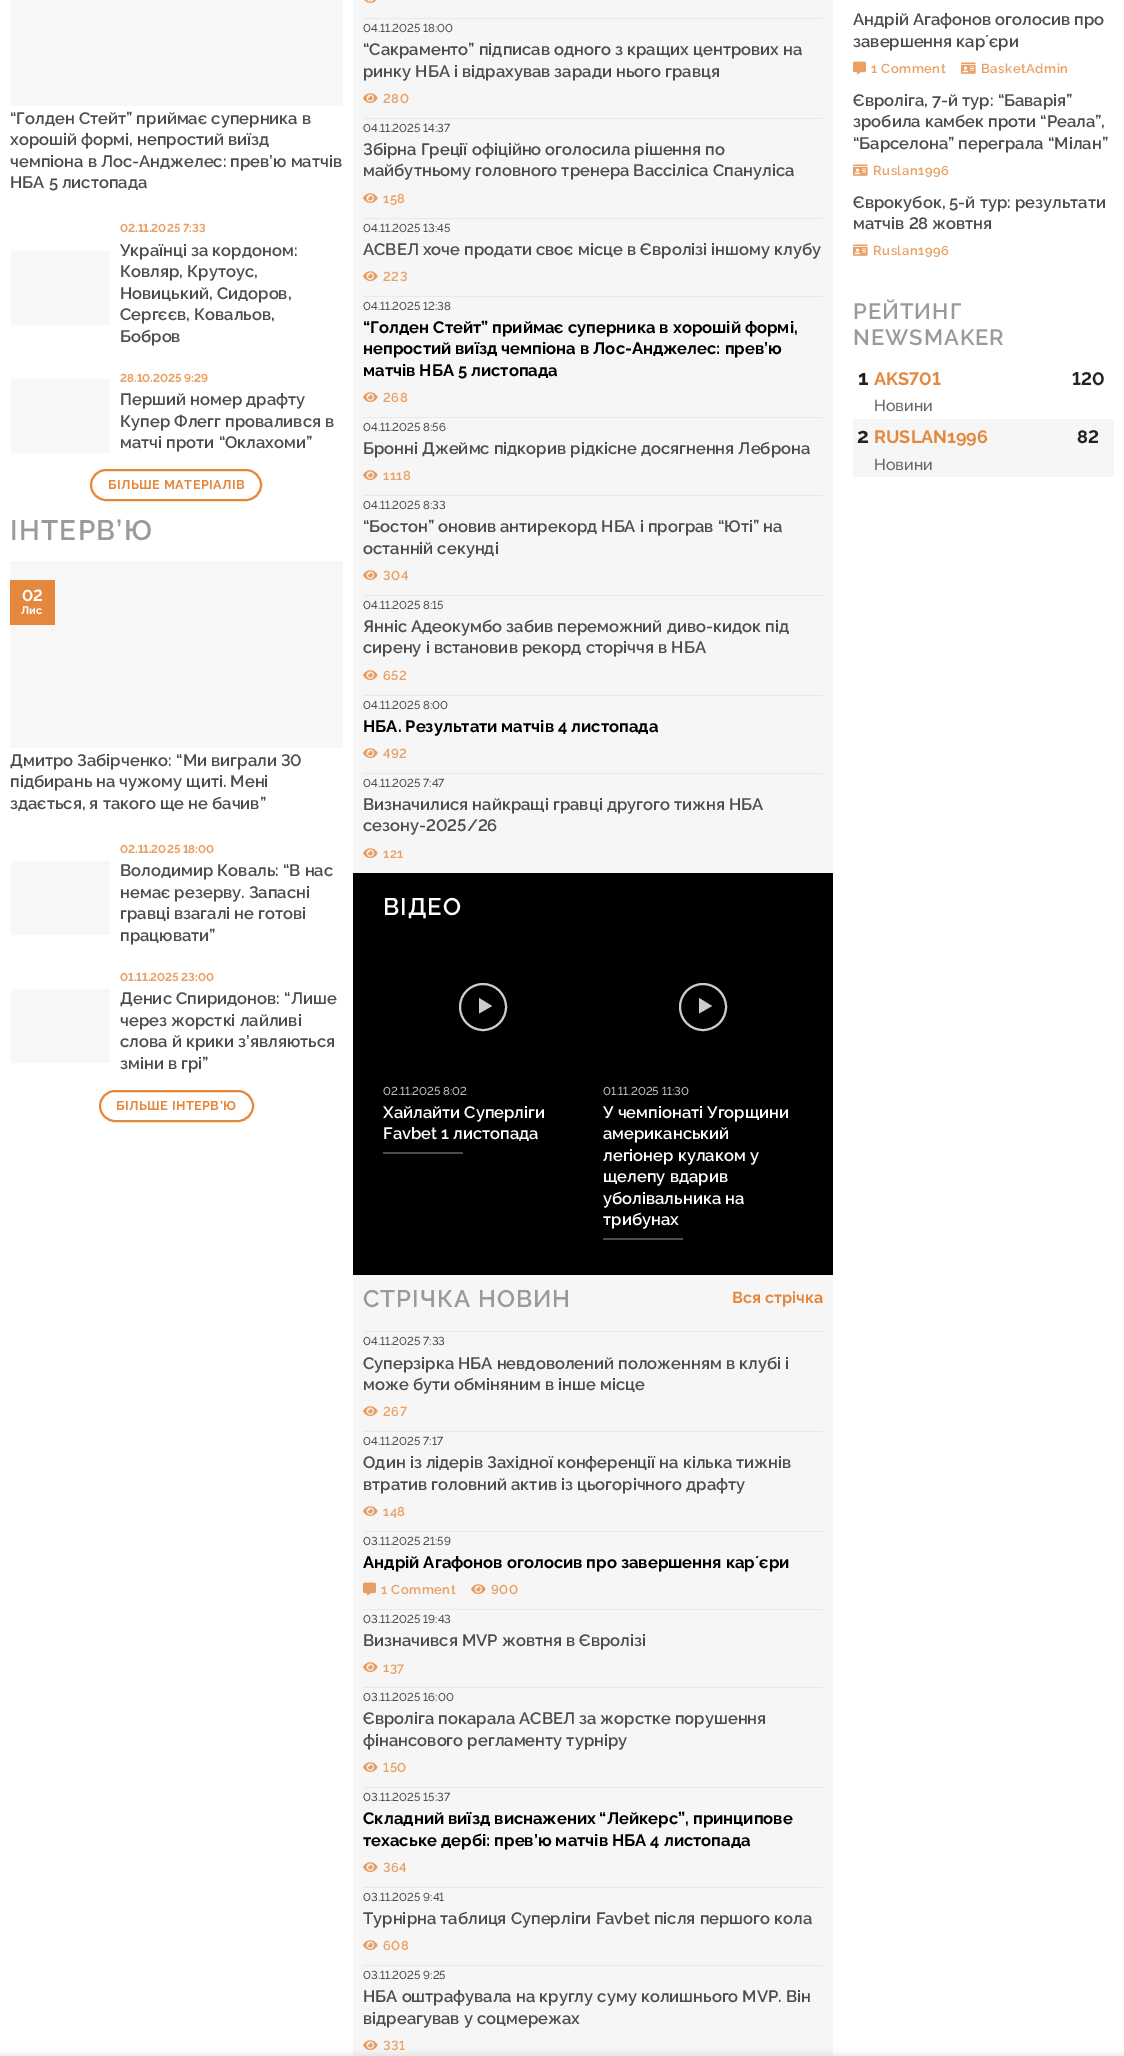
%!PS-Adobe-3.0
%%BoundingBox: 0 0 1124 2056
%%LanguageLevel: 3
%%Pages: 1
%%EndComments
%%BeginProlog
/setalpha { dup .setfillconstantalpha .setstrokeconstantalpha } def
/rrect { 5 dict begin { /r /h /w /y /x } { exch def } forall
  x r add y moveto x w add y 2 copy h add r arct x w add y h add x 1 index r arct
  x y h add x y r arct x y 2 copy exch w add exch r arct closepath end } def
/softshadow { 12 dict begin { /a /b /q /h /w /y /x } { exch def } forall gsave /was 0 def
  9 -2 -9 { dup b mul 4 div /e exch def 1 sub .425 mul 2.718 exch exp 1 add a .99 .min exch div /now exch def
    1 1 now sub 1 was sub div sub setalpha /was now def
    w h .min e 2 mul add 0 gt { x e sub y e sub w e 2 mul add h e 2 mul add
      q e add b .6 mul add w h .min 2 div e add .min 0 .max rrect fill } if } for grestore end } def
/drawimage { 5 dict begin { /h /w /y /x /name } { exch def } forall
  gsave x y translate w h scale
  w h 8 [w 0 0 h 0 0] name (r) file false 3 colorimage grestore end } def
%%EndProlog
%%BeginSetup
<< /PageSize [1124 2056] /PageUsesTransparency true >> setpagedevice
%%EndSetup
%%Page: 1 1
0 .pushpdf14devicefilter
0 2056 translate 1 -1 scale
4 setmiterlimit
1 setgray
0 0 1124 2056 rectfill
0.969 setgray
10 0 333 106 rectfill
11 251 99 74 rectfill
11 379 99 74 rectfill
0.894 0.533 0.239 setrgbcolor
2 setlinewidth
91 470 170 30 15 rrect stroke
0.969 setgray
10 561 333 187 rectfill
0.894 0.533 0.239 setrgbcolor
10 580 45 45 rectfill
0.969 setgray
11 861 99 74 rectfill
11 989 99 74 rectfill
0.894 0.533 0.239 setrgbcolor
100 1091 153 30 15 rrect stroke
0.965 setgray
353 0 480 873 rectfill
(images/1.raw) 364 0 13 3 drawimage
0.914 0.914 0.922 setrgbcolor
363 18 460 1 rectfill
(images/2.raw) 363 93 15 10 drawimage
363 118 460 1 rectfill
(images/2.raw) 363 193 15 10 drawimage
363 218 460 1 rectfill
(images/2.raw) 363 271 15 10 drawimage
363 296 460 1 rectfill
(images/2.raw) 363 392 15 10 drawimage
363 417 460 1 rectfill
(images/2.raw) 363 470 15 10 drawimage
363 495 460 1 rectfill
(images/2.raw) 363 570 15 10 drawimage
363 595 460 1 rectfill
(images/2.raw) 363 670 15 10 drawimage
363 695 460 1 rectfill
(images/2.raw) 363 748 15 10 drawimage
363 773 460 1 rectfill
(images/2.raw) 363 848 15 10 drawimage
0 setgray
353 873 480 402 rectfill
0.8 setgray
newpath 483 1007 23 0 360 arc closepath stroke
newpath 479 998 moveto 492 1006 lineto 479 1013.5 lineto closepath fill
0.302 setgray
383 1152 80 2 rectfill
0.8 setgray
newpath 703 1007 23 0 360 arc closepath stroke
newpath 699 998 moveto 712 1006 lineto 699 1013.5 lineto closepath fill
0.302 setgray
603 1238 80 2 rectfill
0.965 setgray
353 1275 480 781 rectfill
0.914 0.914 0.922 setrgbcolor
363 1331 460 1 rectfill
(images/2.raw) 363 1406 15 10 drawimage
363 1431 460 1 rectfill
(images/2.raw) 363 1506 15 10 drawimage
363 1531 460 1 rectfill
(images/3.raw) 363 1582 13 14 drawimage
(images/2.raw) 471 1584 15 10 drawimage
363 1609 460 1 rectfill
(images/2.raw) 363 1662 15 10 drawimage
363 1687 460 1 rectfill
(images/2.raw) 363 1762 15 10 drawimage
363 1787 460 1 rectfill
(images/2.raw) 363 1862 15 10 drawimage
363 1887 460 1 rectfill
(images/2.raw) 363 1940 15 10 drawimage
363 1965 460 1 rectfill
(images/2.raw) 363 2040 15 10 drawimage
(images/4.raw) 853 61 13 14 drawimage
(images/5.raw) 961 62 15 12 drawimage
(images/5.raw) 853 164 15 12 drawimage
(images/5.raw) 853 244 15 12 drawimage
0.965 setgray
853 419 261 58 rectfill
0 setgray
0 2056 1124 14 0 4.5 0.14 softshadow
/Raleway-SemiBold [16.55 0 0 -16.55 0 0] selectfont
0.302 setgray
10 124 moveto (“Голден Стейт” приймає суперника в) show
10 145 moveto (хорошій формі, непростий виїзд) show
10 167 moveto (чемпіона в Лос-Анджелес: прев’ю матчів) show
10 188 moveto (НБА 5 листопада) show
/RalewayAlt-Bold [11.5 0 0 -11.5 0 0] selectfont
0.914 0.627 0.392 setrgbcolor
120 232 moveto (02.11.2025 7:33) show
/Raleway-SemiBold [16.55 0 0 -16.55 0 0] selectfont
0.302 setgray
120 256 moveto (Українці за кордоном:) show
120 277 moveto (Ковляр, Крутоус,) show
120 299 moveto (Новицький, Сидоров,) show
120 320 moveto (Сергєєв, Ковальов,) show
120 342 moveto (Бобров) show
/RalewayAlt-Bold [11.5 0 0 -11.5 0 0] selectfont
0.914 0.627 0.392 setrgbcolor
120 382 moveto (28.10.2025 9:29) show
/Raleway-SemiBold [16.55 0 0 -16.55 0 0] selectfont
0.302 setgray
120 405 moveto (Перший номер драфту) show
120 427 moveto (Купер Флегг провалився в) show
120 448 moveto (матчі проти “Оклахоми”) show
/Raleway-Bold [12.75 0 0 -12.75 0 0] selectfont
0.894 0.533 0.239 setrgbcolor
108 489 moveto 0.4 0 (БІЛЬШЕ МАТЕРІАЛІВ) ashow
/Raleway-SemiBold [28 0 0 -28 0 0] selectfont
0.604 setgray
10 540 moveto 1.25 0 (ІНТЕРВ’Ю) ashow
/RalewayAlt-Bold [16 0 0 -16 0 0] selectfont
1 setgray
22 601 moveto (02) show
/Raleway-Bold [11 0 0 -11 0 0] selectfont
21 614 moveto (Лис) show
/RalewayAlt-SemiBold [16.55 0 0 -16.55 0 0] selectfont
0.302 setgray
10 766 moveto (Дмитро Забірченко: “Ми виграли 30) show
/Raleway-SemiBold [16.55 0 0 -16.55 0 0] selectfont
10 787 moveto (підбирань на чужому щиті. Мені) show
10 809 moveto (здається, я такого ще не бачив”) show
/RalewayAlt-Bold [11.5 0 0 -11.5 0 0] selectfont
0.914 0.627 0.392 setrgbcolor
120 853 moveto (02.11.2025 18:00) show
/Raleway-SemiBold [16.55 0 0 -16.55 0 0] selectfont
0.302 setgray
120 876 moveto (Володимир Коваль: “В нас) show
120 898 moveto (немає резерву. Запасні) show
120 919 moveto (гравці взагалі не готові) show
120 941 moveto (працювати”) show
/RalewayAlt-Bold [11.5 0 0 -11.5 0 0] selectfont
0.914 0.627 0.392 setrgbcolor
120 981 moveto (01.11.2025 23:00) show
/Raleway-SemiBold [16.55 0 0 -16.55 0 0] selectfont
0.302 setgray
120 1004 moveto (Денис Спиридонов: “Лише) show
120 1026 moveto (через жорсткі лайливі) show
120 1047 moveto (слова й крики з’являються) show
120 1069 moveto (зміни в грі”) show
/Raleway-Bold [12.75 0 0 -12.75 0 0] selectfont
0.894 0.533 0.239 setrgbcolor
116 1110 moveto 0.4 0 (БІЛЬШЕ ІНТЕРВ'Ю) ashow
/RalewayAlt-Medium [11.5 0 0 -11.5 0 0] selectfont
0.302 setgray
363 32 moveto (04.11.2025 18:00) show
/Raleway-SemiBold [16.55 0 0 -16.55 0 0] selectfont
363 55 moveto (“Сакраменто” підписав одного з кращих центрових на) show
363 77 moveto (ринку НБА і відрахував заради нього гравця) show
/RalewayAlt-SemiBold [13 0 0 -13 0 0] selectfont
0.914 0.627 0.392 setrgbcolor
383 103 moveto 0.5 0 (280) ashow
/RalewayAlt-Medium [11.5 0 0 -11.5 0 0] selectfont
0.302 setgray
363 132 moveto (04.11.2025 14:37) show
/Raleway-SemiBold [16.55 0 0 -16.55 0 0] selectfont
363 155 moveto (Збірна Греції офіційно оголосила рішення по) show
363 176 moveto (майбутньому головного тренера Вассіліса Спануліса) show
/Raleway-SemiBold [13 0 0 -13 0 0] selectfont
0.914 0.627 0.392 setrgbcolor
383 203 moveto 0.5 0 (158) ashow
/RalewayAlt-Medium [11.5 0 0 -11.5 0 0] selectfont
0.302 setgray
363 232 moveto (04.11.2025 13:45) show
/Raleway-SemiBold [16.55 0 0 -16.55 0 0] selectfont
363 255 moveto (АСВЕЛ хоче продати своє місце в Євролізі іншому клубу) show
/RalewayAlt-SemiBold [13 0 0 -13 0 0] selectfont
0.914 0.627 0.392 setrgbcolor
383 281 moveto 0.5 0 (223) ashow
/RalewayAlt-Medium [11.5 0 0 -11.5 0 0] selectfont
0.302 setgray
363 310 moveto (04.11.2025 12:38) show
/Raleway-Bold [16.55 0 0 -16.55 0 0] selectfont
0 setgray
363 333 moveto (“Голден Стейт” приймає суперника в хорошій формі,) show
363 354 moveto (непростий виїзд чемпіона в Лос-Анджелес: прев’ю) show
363 376 moveto (матчів НБА 5 листопада) show
/RalewayAlt-SemiBold [13 0 0 -13 0 0] selectfont
0.914 0.627 0.392 setrgbcolor
383 402 moveto 0.5 0 (268) ashow
/RalewayAlt-Medium [11.5 0 0 -11.5 0 0] selectfont
0.302 setgray
363 431 moveto (04.11.2025 8:56) show
/Raleway-SemiBold [16.55 0 0 -16.55 0 0] selectfont
363 454 moveto (Бронні Джеймс підкорив рідкісне досягнення Леброна) show
/Raleway-SemiBold [13 0 0 -13 0 0] selectfont
0.914 0.627 0.392 setrgbcolor
383 480 moveto 0.5 0 (1118) ashow
/RalewayAlt-Medium [11.5 0 0 -11.5 0 0] selectfont
0.302 setgray
363 509 moveto (04.11.2025 8:33) show
/Raleway-SemiBold [16.55 0 0 -16.55 0 0] selectfont
363 532 moveto (“Бостон” оновив антирекорд НБА і програв “Юті” на) show
363 554 moveto (останній секунді) show
/RalewayAlt-SemiBold [13 0 0 -13 0 0] selectfont
0.914 0.627 0.392 setrgbcolor
383 580 moveto 0.5 0 (304) ashow
/RalewayAlt-Medium [11.5 0 0 -11.5 0 0] selectfont
0.302 setgray
363 609 moveto (04.11.2025 8:15) show
/Raleway-SemiBold [16.55 0 0 -16.55 0 0] selectfont
363 632 moveto (Янніс Адеокумбо забив переможний диво-кидок під) show
363 653 moveto (сирену і встановив рекорд сторіччя в НБА) show
/RalewayAlt-SemiBold [13 0 0 -13 0 0] selectfont
0.914 0.627 0.392 setrgbcolor
383 680 moveto 0.5 0 (652) ashow
/RalewayAlt-Medium [11.5 0 0 -11.5 0 0] selectfont
0.302 setgray
363 709 moveto (04.11.2025 8:00) show
/Raleway-Bold [16.55 0 0 -16.55 0 0] selectfont
0 setgray
363 732 moveto (НБА. Результати матчів 4 листопада) show
/RalewayAlt-SemiBold [13 0 0 -13 0 0] selectfont
0.914 0.627 0.392 setrgbcolor
383 758 moveto 0.5 0 (492) ashow
/RalewayAlt-Medium [11.5 0 0 -11.5 0 0] selectfont
0.302 setgray
363 787 moveto (04.11.2025 7:47) show
/Raleway-SemiBold [16.55 0 0 -16.55 0 0] selectfont
363 810 moveto (Визначилися найкращі гравці другого тижня НБА) show
/RalewayAlt-SemiBold [16.55 0 0 -16.55 0 0] selectfont
363 831 moveto (сезону-2025/26) show
/Raleway-SemiBold [13 0 0 -13 0 0] selectfont
0.914 0.627 0.392 setrgbcolor
383 858 moveto 0.5 0 (121) ashow
/Raleway-SemiBold [24 0 0 -24 0 0] selectfont
1 setgray
383 915 moveto 1 0 (ВІДЕО) ashow
/RalewayAlt-Medium [11.5 0 0 -11.5 0 0] selectfont
0.757 setgray
383 1095 moveto (02.11.2025 8:02) show
/Raleway-SemiBold [16.55 0 0 -16.55 0 0] selectfont
1 setgray
383 1118 moveto (Хайлайти Суперліги) show
383 1139 moveto (Favbet 1 листопада) show
/RalewayAlt-Medium [11.5 0 0 -11.5 0 0] selectfont
0.757 setgray
603 1095 moveto (01.11.2025 11:30) show
/Raleway-SemiBold [16.55 0 0 -16.55 0 0] selectfont
1 setgray
603 1118 moveto (У чемпіонаті Угорщини) show
603 1139 moveto (американський) show
603 1161 moveto (легіонер кулаком у) show
603 1182 moveto (щелепу вдарив) show
603 1204 moveto (уболівальника на) show
603 1225 moveto (трибунах) show
/Raleway-SemiBold [24 0 0 -24 0 0] selectfont
0.604 setgray
363 1307 moveto 1 0 (СТРІЧКА НОВИН) ashow
/Raleway-Bold [16 0 0 -16 0 0] selectfont
0.894 0.533 0.239 setrgbcolor
732 1303 moveto (Вся стрічка) show
/RalewayAlt-Medium [11.5 0 0 -11.5 0 0] selectfont
0.302 setgray
363 1345 moveto (04.11.2025 7:33) show
/Raleway-SemiBold [16.55 0 0 -16.55 0 0] selectfont
363 1369 moveto (Суперзірка НБА невдоволений положенням в клубі і) show
363 1390 moveto (може бути обміняним в інше місце) show
/RalewayAlt-SemiBold [13 0 0 -13 0 0] selectfont
0.914 0.627 0.392 setrgbcolor
383 1416 moveto 0.5 0 (267) ashow
/RalewayAlt-Medium [11.5 0 0 -11.5 0 0] selectfont
0.302 setgray
363 1445 moveto (04.11.2025 7:17) show
/Raleway-SemiBold [16.55 0 0 -16.55 0 0] selectfont
363 1468 moveto (Один із лідерів Західної конференції на кілька тижнів) show
363 1490 moveto (втратив головний актив із цьогорічного драфту) show
/Raleway-SemiBold [13 0 0 -13 0 0] selectfont
0.914 0.627 0.392 setrgbcolor
383 1516 moveto 0.5 0 (148) ashow
/RalewayAlt-Medium [11.5 0 0 -11.5 0 0] selectfont
0.302 setgray
363 1545 moveto (03.11.2025 21:59) show
/Raleway-Bold [16.55 0 0 -16.55 0 0] selectfont
0 setgray
363 1568 moveto (Андрій Агафонов оголосив про завершення карʼєри) show
/Raleway-SemiBold [13 0 0 -13 0 0] selectfont
0.914 0.627 0.392 setrgbcolor
381 1594 moveto 0.5 0 (1 Comment) ashow
/RalewayAlt-SemiBold [13 0 0 -13 0 0] selectfont
491 1594 moveto 0.5 0 (900) ashow
/RalewayAlt-Medium [11.5 0 0 -11.5 0 0] selectfont
0.302 setgray
363 1623 moveto (03.11.2025 19:43) show
/Raleway-SemiBold [16.55 0 0 -16.55 0 0] selectfont
363 1646 moveto (Визначився MVP жовтня в Євролізі) show
/Raleway-SemiBold [13 0 0 -13 0 0] selectfont
0.914 0.627 0.392 setrgbcolor
383 1672 moveto 0.5 0 (137) ashow
/RalewayAlt-Medium [11.5 0 0 -11.5 0 0] selectfont
0.302 setgray
363 1701 moveto (03.11.2025 16:00) show
/Raleway-SemiBold [16.55 0 0 -16.55 0 0] selectfont
363 1724 moveto (Євроліга покарала АСВЕЛ за жорстке порушення) show
363 1746 moveto (фінансового регламенту турніру) show
/RalewayAlt-SemiBold [13 0 0 -13 0 0] selectfont
0.914 0.627 0.392 setrgbcolor
383 1772 moveto 0.5 0 (150) ashow
/RalewayAlt-Medium [11.5 0 0 -11.5 0 0] selectfont
0.302 setgray
363 1801 moveto (03.11.2025 15:37) show
/Raleway-Bold [16.55 0 0 -16.55 0 0] selectfont
0 setgray
363 1824 moveto (Складний виїзд виснажених “Лейкерс”, принципове) show
363 1846 moveto (техаське дербі: прев’ю матчів НБА 4 листопада) show
/RalewayAlt-SemiBold [13 0 0 -13 0 0] selectfont
0.914 0.627 0.392 setrgbcolor
383 1872 moveto 0.5 0 (364) ashow
/RalewayAlt-Medium [11.5 0 0 -11.5 0 0] selectfont
0.302 setgray
363 1901 moveto (03.11.2025 9:41) show
/Raleway-SemiBold [16.55 0 0 -16.55 0 0] selectfont
363 1924 moveto (Турнірна таблиця Суперліги Favbet після першого кола) show
/RalewayAlt-SemiBold [13 0 0 -13 0 0] selectfont
0.914 0.627 0.392 setrgbcolor
383 1950 moveto 0.5 0 (608) ashow
/RalewayAlt-Medium [11.5 0 0 -11.5 0 0] selectfont
0.302 setgray
363 1979 moveto (03.11.2025 9:25) show
/Raleway-SemiBold [16.55 0 0 -16.55 0 0] selectfont
363 2002 moveto (НБА оштрафувала на круглу суму колишнього MVP. Він) show
363 2024 moveto (відреагував у соцмережах) show
/RalewayAlt-SemiBold [13 0 0 -13 0 0] selectfont
0.914 0.627 0.392 setrgbcolor
383 2050 moveto 0.5 0 (331) ashow
/Raleway-SemiBold [16.55 0 0 -16.55 0 0] selectfont
0.302 setgray
853 25 moveto (Андрій Агафонов оголосив про) show
853 47 moveto (завершення карʼєри) show
/Raleway-SemiBold [13 0 0 -13 0 0] selectfont
0.914 0.627 0.392 setrgbcolor
871 73 moveto 0.5 0 (1 Comment) ashow
981 73 moveto 0.5 0 (BasketAdmin) ashow
/Raleway-SemiBold [16.55 0 0 -16.55 0 0] selectfont
0.302 setgray
853 106 moveto (Євроліга, 7-й тур: “Баварія”) show
853 127 moveto (зробила камбек проти “Реала”,) show
853 149 moveto (“Барселона” переграла “Мілан”) show
/Raleway-SemiBold [13 0 0 -13 0 0] selectfont
0.914 0.627 0.392 setrgbcolor
873 175 moveto 0.5 0 (Ruslan1996) ashow
/Raleway-SemiBold [16.55 0 0 -16.55 0 0] selectfont
0.302 setgray
853 208 moveto (Єврокубок, 5-й тур: результати) show
/RalewayAlt-SemiBold [16.55 0 0 -16.55 0 0] selectfont
853 229 moveto (матчів 28 жовтня) show
/Raleway-SemiBold [13 0 0 -13 0 0] selectfont
0.914 0.627 0.392 setrgbcolor
873 255 moveto 0.5 0 (Ruslan1996) ashow
/Raleway-SemiBold [22 0 0 -22 0 0] selectfont
0.604 setgray
853 319 moveto 1 0 (РЕЙТИНГ) ashow
853 345 moveto 1 0 (NEWSMAKER) ashow
/Raleway-Bold [21 0 0 -21 0 0] selectfont
0.133 setgray
858 385 moveto (1) show
/RalewayAlt-Bold [18 0 0 -18 0 0] selectfont
0.894 0.533 0.239 setrgbcolor
874 385 moveto (AKS701) show
/Raleway-Medium [16 0 0 -16 0 0] selectfont
0.4 setgray
874 411 moveto (Новини) show
/RalewayAlt-Bold [18 0 0 -18 0 0] selectfont
0.133 setgray
1072 385 moveto (120) show
/Raleway-Bold [21 0 0 -21 0 0] selectfont
857 443 moveto (2) show
/Raleway-Bold [18 0 0 -18 0 0] selectfont
0.894 0.533 0.239 setrgbcolor
874 443 moveto (RUSLAN1996) show
/Raleway-Medium [16 0 0 -16 0 0] selectfont
0.4 setgray
874 470 moveto (Новини) show
/RalewayAlt-Bold [18 0 0 -18 0 0] selectfont
0.133 setgray
1077 443 moveto (82) show
.poppdf14devicefilter showpage
%%EOF
